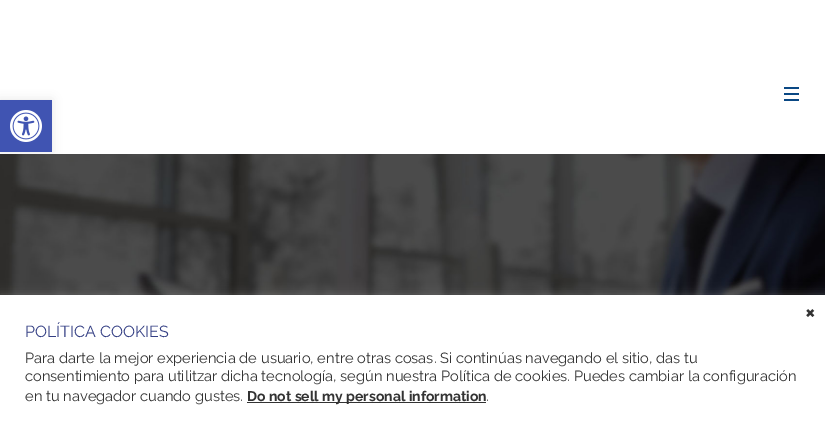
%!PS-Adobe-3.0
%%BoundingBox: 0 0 825 432
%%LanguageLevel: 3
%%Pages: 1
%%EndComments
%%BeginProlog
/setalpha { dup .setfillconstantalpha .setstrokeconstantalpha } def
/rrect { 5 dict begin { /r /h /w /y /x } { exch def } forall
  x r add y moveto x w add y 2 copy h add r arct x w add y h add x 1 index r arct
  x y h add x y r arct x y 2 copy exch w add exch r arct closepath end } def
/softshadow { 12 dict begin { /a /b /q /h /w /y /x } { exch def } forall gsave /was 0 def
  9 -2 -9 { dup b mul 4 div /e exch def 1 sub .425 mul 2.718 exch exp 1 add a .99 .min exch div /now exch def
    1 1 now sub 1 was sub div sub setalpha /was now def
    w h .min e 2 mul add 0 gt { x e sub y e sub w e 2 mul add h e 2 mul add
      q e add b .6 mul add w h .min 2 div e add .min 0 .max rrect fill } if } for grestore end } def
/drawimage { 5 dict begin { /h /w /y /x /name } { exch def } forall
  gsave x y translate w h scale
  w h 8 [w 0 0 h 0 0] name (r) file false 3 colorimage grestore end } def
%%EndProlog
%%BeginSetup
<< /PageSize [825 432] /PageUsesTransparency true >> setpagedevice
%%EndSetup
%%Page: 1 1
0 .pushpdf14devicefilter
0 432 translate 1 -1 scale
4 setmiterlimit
1 setgray
0 0 825 432 rectfill
(images/2.raw) 0 154 825 141 drawimage
0 setgray
0 100 52 52 0 5 0.1 softshadow
0.251 0.329 0.698 setrgbcolor
0 100 52 52 rectfill
(images/1.raw) 10 110 32 32 drawimage
0.039 0.282 0.518 setrgbcolor
784 93 15 2 rectfill
784 87 15 2 rectfill
784 99 15 2 rectfill
0.675 0.671 0.671 setrgbcolor
0 294 825 137 0 5 0.3 softshadow
1 setgray
0 295 825 137 rectfill
0.2 setgray
247 402 239 1 rectfill
/Raleway-Bold [22 0 0 -22 0 0] selectfont
805 319 moveto (×) show
/Raleway-Regular [14.67 0 0 -14.67 0 0] selectfont
25 363 moveto (Para darte la mejor experiencia de usuario, entre otras cosas. Si continúas navegando el sitio, das tu) show
25 381 moveto (consentimiento para utilitzar dicha tecnología, según nuestra Política de cookies. Puedes cambiar la configuración) show
25 401 moveto (en tu navegador cuando gustes.) show
/Raleway-Bold [14 0 0 -14 0 0] selectfont
247 401 moveto (Do not sell my personal information) show
/Raleway-Regular [14.67 0 0 -14.67 0 0] selectfont
486 401 moveto (.) show
/Raleway-Regular [16 0 0 -16 0 0] selectfont
0.2 0.243 0.514 setrgbcolor
25 337 moveto (POLÍTICA COOKIES) show
.poppdf14devicefilter showpage
%%EOF
